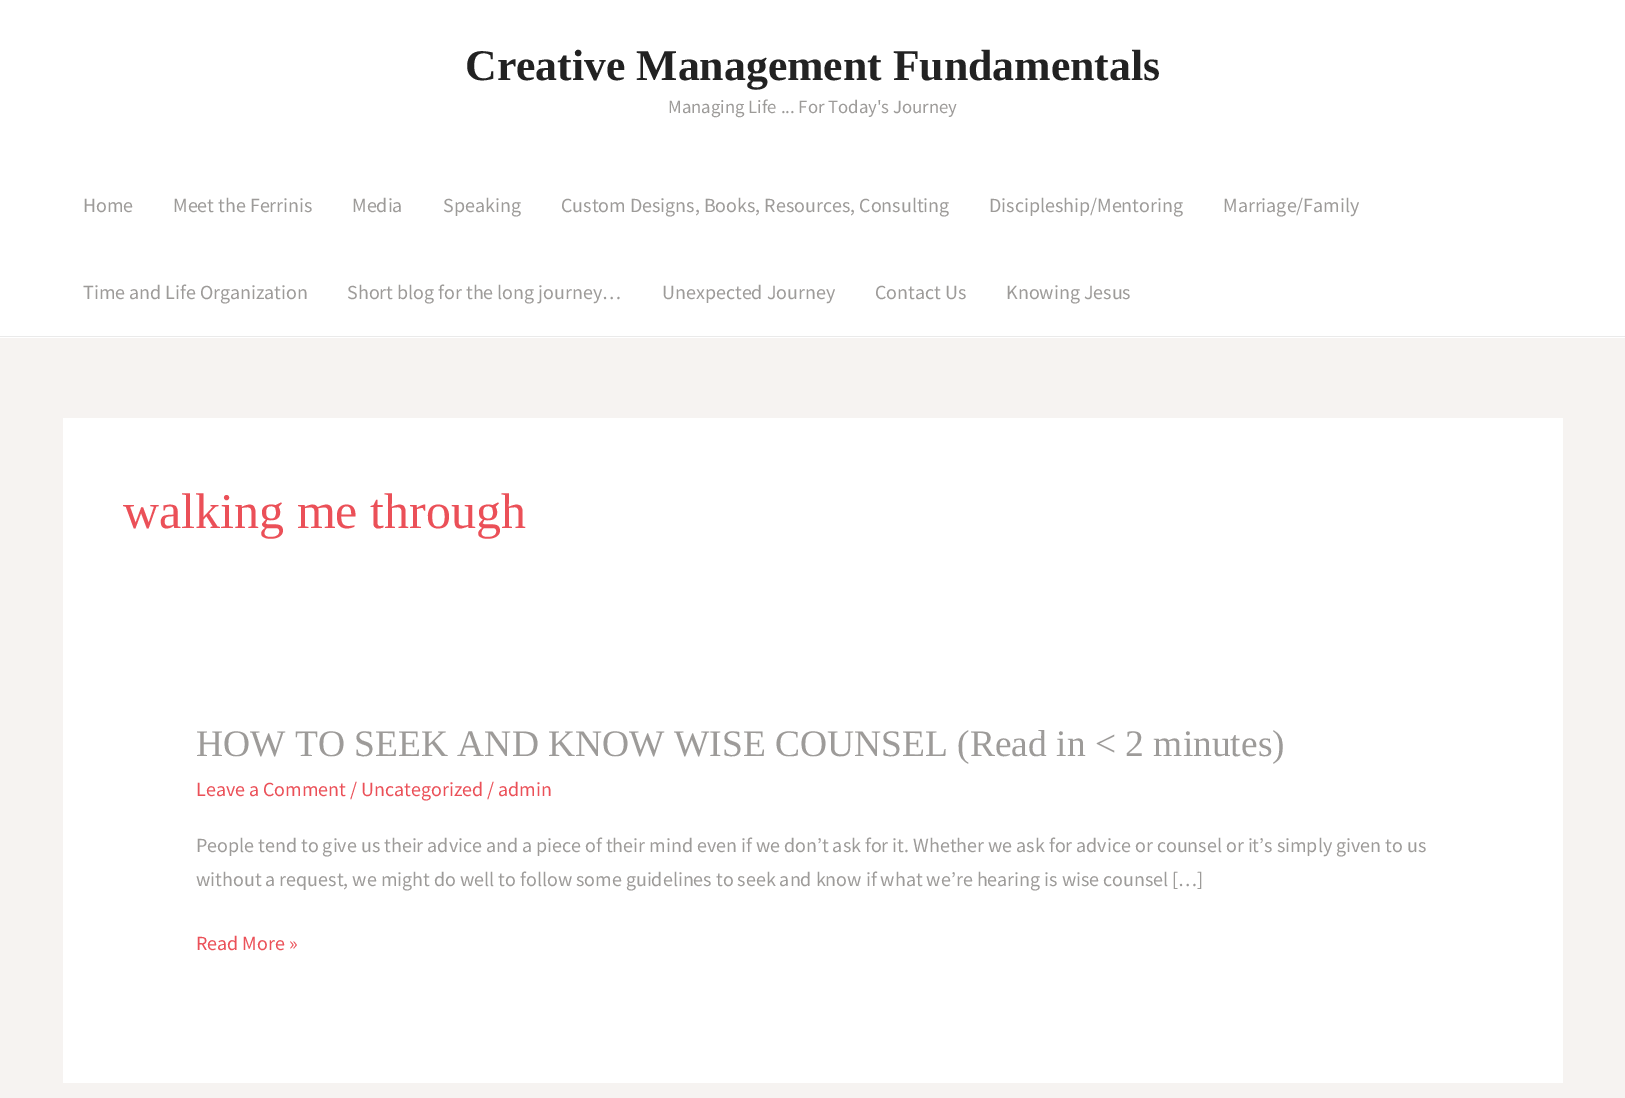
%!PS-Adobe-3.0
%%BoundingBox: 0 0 1625 1098
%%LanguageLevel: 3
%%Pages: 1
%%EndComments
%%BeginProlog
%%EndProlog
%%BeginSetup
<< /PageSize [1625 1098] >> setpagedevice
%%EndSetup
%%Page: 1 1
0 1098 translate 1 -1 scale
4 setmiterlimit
0.965 0.953 0.945 setrgbcolor
0 0 1625 1098 rectfill
1 setgray
0 0 1625 338 rectfill
0.918 setgray
0 336 1625 1 rectfill
1 setgray
63 418 1500 665 rectfill
/LiberationSerif-Bold [43.75 0 0 -43.75 0 0] selectfont
0.133 setgray
465 80 moveto (Creative Management Fundamentals) show
/SourceSansPro-Regular [18.75 0 0 -18.75 0 0] selectfont
0.616 0.608 0.6 setrgbcolor
668 113 moveto (Managing Life ... For Today's Journey) show
/SourceSansPro-Regular [20 0 0 -20 0 0] selectfont
83 212 moveto (Home) show
173 212 moveto (Meet the Ferrinis) show
352 212 moveto (Media) show
443 212 moveto (Speaking) show
561 212 moveto (Custom Designs, Books, Resources, Consulting) show
989 212 moveto (Discipleship/Mentoring) show
1223 212 moveto (Marriage/Family) show
83 299 moveto (Time and Life Organization) show
347 299 moveto (Short blog for the long journey…) show
662 299 moveto (Unexpected Journey) show
875 299 moveto (Contact Us) show
1006 299 moveto (Knowing Jesus) show
/LiberationSerif-Regular [50 0 0 -50 0 0] selectfont
0.922 0.314 0.345 setrgbcolor
123 528 moveto (walking me through) show
/LiberationSerif-Regular [37.5 0 0 -37.5 0 0] selectfont
0.616 0.608 0.6 setrgbcolor
196 756 moveto (HOW TO SEEK AND KNOW WISE COUNSEL \(Read in < 2 minutes\)) show
/SourceSansPro-Regular [20 0 0 -20 0 0] selectfont
0.922 0.314 0.345 setrgbcolor
196 796 moveto (Leave a Comment / Uncategorized / admin) show
0.616 0.608 0.6 setrgbcolor
196 852 moveto (People tend to give us their advice and a piece of their mind even if we don’t ask for it. Whether we ask for advice or counsel or it’s simply given to us) show
196 886 moveto (without a request, we might do well to follow some guidelines to seek and know if what we’re hearing is wise counsel […]) show
0.922 0.314 0.345 setrgbcolor
196 950 moveto (Read More ») show
showpage
%%EOF
